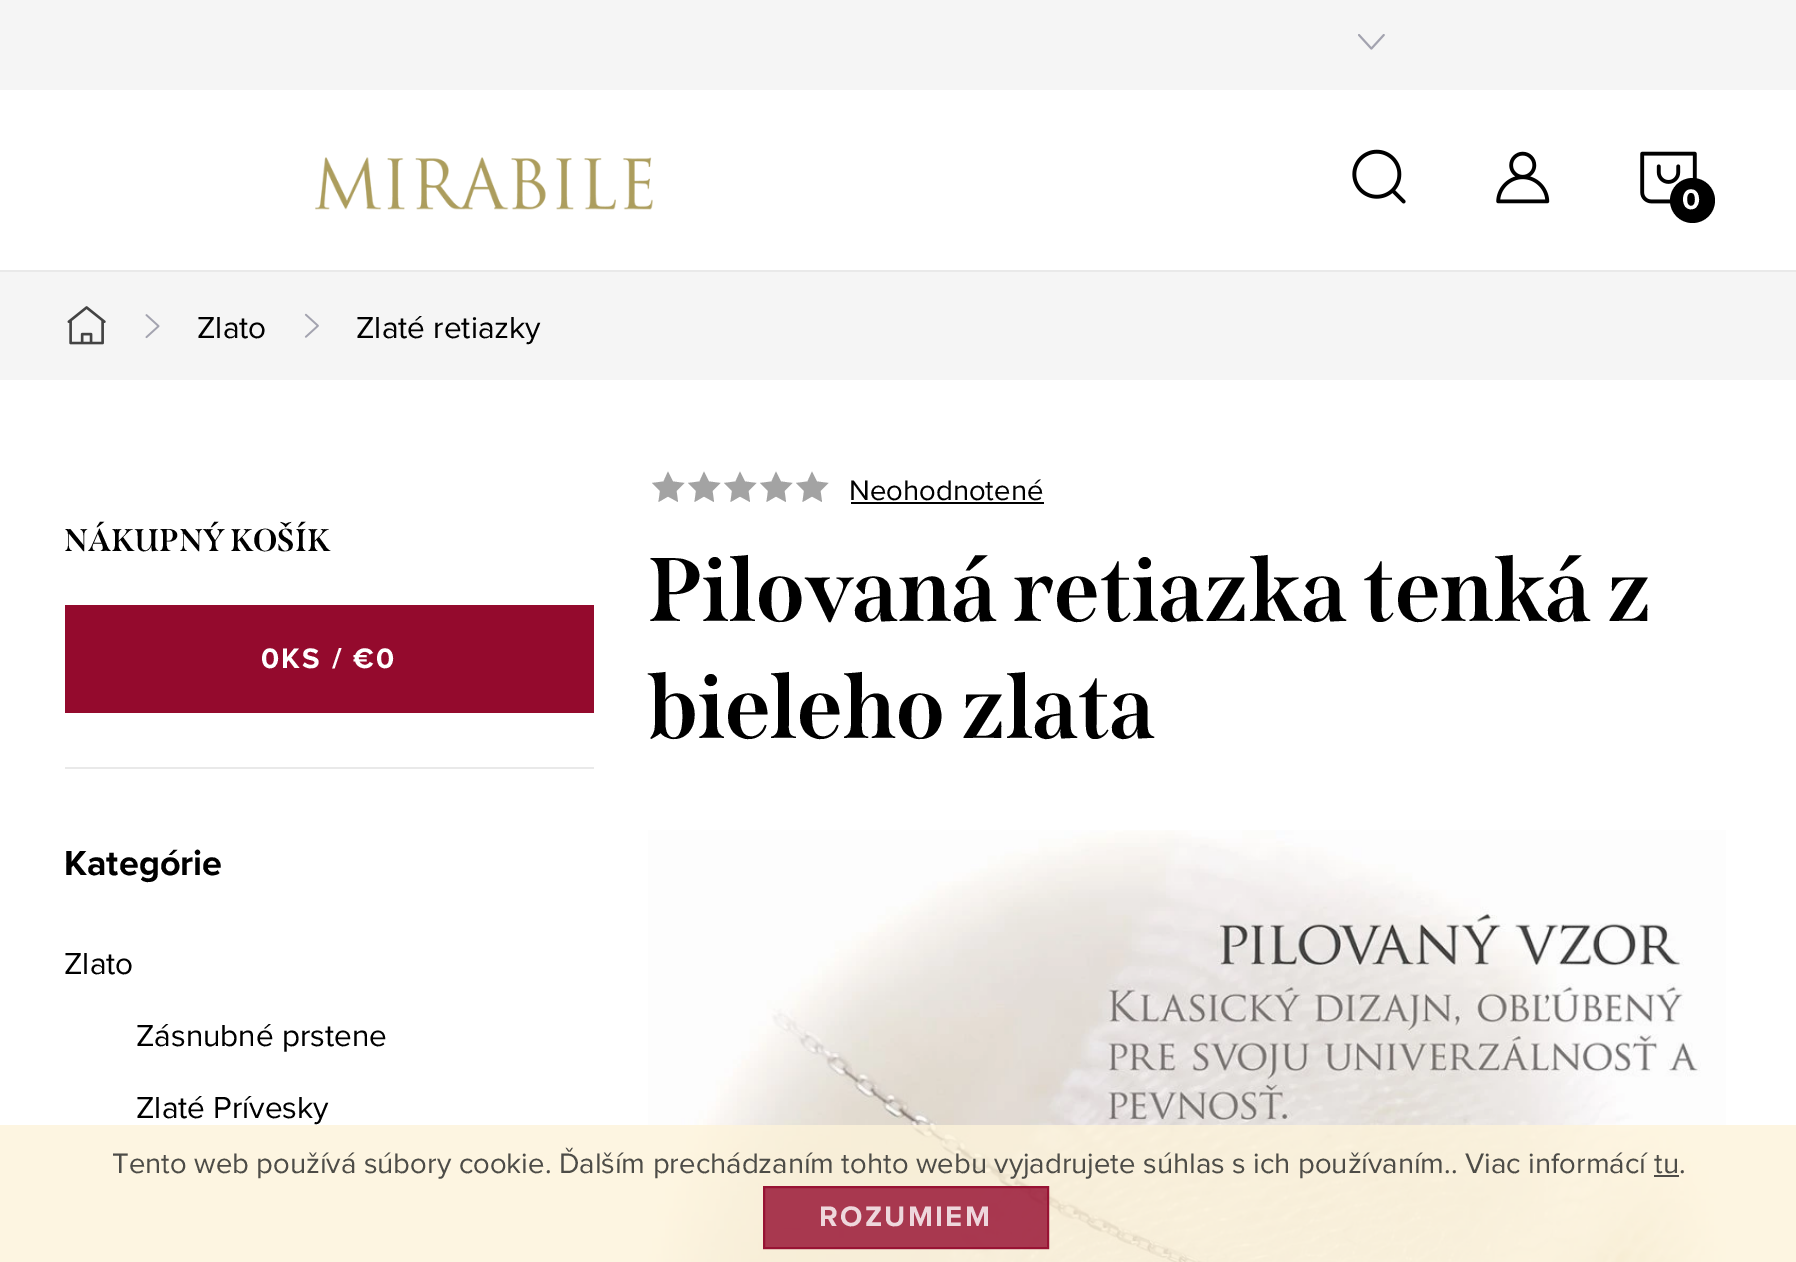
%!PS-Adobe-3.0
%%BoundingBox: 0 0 1796 1262
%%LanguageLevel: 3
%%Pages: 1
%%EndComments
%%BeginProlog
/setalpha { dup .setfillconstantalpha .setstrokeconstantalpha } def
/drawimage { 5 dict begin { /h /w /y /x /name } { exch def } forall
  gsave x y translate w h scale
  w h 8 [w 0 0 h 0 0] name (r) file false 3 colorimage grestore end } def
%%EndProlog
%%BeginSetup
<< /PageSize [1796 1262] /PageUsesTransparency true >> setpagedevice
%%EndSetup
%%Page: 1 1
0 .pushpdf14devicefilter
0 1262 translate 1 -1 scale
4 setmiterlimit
1 setgray
0 0 1796 1262 rectfill
0.961 setgray
0 0 1796 90 rectfill
(images/1.raw) 1358 34 27 16 drawimage
0.914 setgray
0 270 1796 2 rectfill
(images/2.raw) 315 157 338 53 drawimage
(images/3.raw) 1352 149 54 55 drawimage
(images/4.raw) 1496 151 54 53 drawimage
(images/5.raw) 1640 151 57 53 drawimage
0 setgray
newpath 1692.5 200.5 22.5 0 360 arc closepath fill
0.961 setgray
0 272 1796 108 rectfill
(images/6.raw) 67 306 39 39 drawimage
(images/7.raw) 145 314 15 25 drawimage
(images/8.raw) 304 313 15 25 drawimage
0.914 setgray
65 767 529 2 rectfill
0.58 0.039 0.176 setrgbcolor
65 605 529 108 rectfill
0.639 setgray
newpath 668 496.5 moveto 658.5 502 lineto 660 491 lineto 652 483 lineto 663.5 481.5 lineto 668 471.5 lineto 673 481.5 lineto 684.5 483 lineto 676.5 491 lineto 678 502 lineto closepath fill
newpath 704 496.5 moveto 694.5 502 lineto 696 491 lineto 688 483 lineto 699.5 481.5 lineto 704 471.5 lineto 709 481.5 lineto 720.5 483 lineto 712.5 491 lineto 714 502 lineto closepath fill
newpath 740 496.5 moveto 730.5 502 lineto 732 491 lineto 724 483 lineto 735.5 481.5 lineto 740 471.5 lineto 745 481.5 lineto 756.5 483 lineto 748.5 491 lineto 750 502 lineto closepath fill
newpath 776 496.5 moveto 766.5 502 lineto 768 491 lineto 760 483 lineto 771.5 481.5 lineto 776 471.5 lineto 781 481.5 lineto 792.5 483 lineto 784.5 491 lineto 786 502 lineto closepath fill
newpath 812 496.5 moveto 802.5 502 lineto 804 491 lineto 796 483 lineto 807.5 481.5 lineto 812 471.5 lineto 817 481.5 lineto 828.5 483 lineto 820.5 491 lineto 822 502 lineto closepath fill
0 setgray
851 502 193 2 rectfill
(images/9.raw) 648 830 1078 432 drawimage
0.8 setalpha
0.992 0.953 0.855 setrgbcolor
0 1125 1796 137 rectfill
1 setalpha
0.306 0.298 0.282 setrgbcolor
1654 1175 25 2 rectfill
0.8 setalpha
0.58 0.039 0.176 setrgbcolor
763 1186 286 63 rectfill
2 setlinewidth
764 1187 284 61 rectstroke
/ProximaNova-Bold [29.25 0 0 -29.25 0 0] selectfont
1 setalpha
1 setgray
1682 209 moveto 2.25 0 (0) ashow
/ProximaNova-Regular [31.5 0 0 -31.5 0 0] selectfont
0 setgray
197 338 moveto (Zlato) show
356 338 moveto (Zlaté retiazky) show
/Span-Bold [31.5 0 0 -31.5 0 0] selectfont
64 551 moveto (NÁKUPNÝ KOŠÍK) show
/ProximaNova-Bold [29.25 0 0 -29.25 0 0] selectfont
1 setgray
261 668 moveto 2.25 0 (0KS / €0) ashow
/ProximaNova-Bold [36 0 0 -36 0 0] selectfont
0 setgray
64 875 moveto (Kategórie) show
/ProximaNova-Regular [31.5 0 0 -31.5 0 0] selectfont
64 974 moveto (Zlato) show
136 1046 moveto (Zásnubné prstene) show
136 1118 moveto (Zlaté Prívesky) show
/ProximaNova-Regular [29.25 0 0 -29.25 0 0] selectfont
849 500 moveto (Neohodnotené) show
/Span-Bold [90 0 0 -90 0 0] selectfont
647 621 moveto (Pilovaná retiazka tenká z) show
647 738 moveto (bieleho zlata) show
/ProximaNova-Regular [29.25 0 0 -29.25 0 0] selectfont
0.302 0.298 0.278 setrgbcolor
112 1173 moveto (Tento web používá súbory cookie. Ďalším prechádzaním tohto webu vyjadrujete súhlas s ich používaním.. Viac informácí) show
1654 1173 moveto (tu) show
1679 1173 moveto (.) show
/ProximaNova-Bold [29.25 0 0 -29.25 0 0] selectfont
0.933 0.843 0.863 setrgbcolor
819 1226 moveto 2.25 0 (ROZUMIEM) ashow
.poppdf14devicefilter showpage
%%EOF
